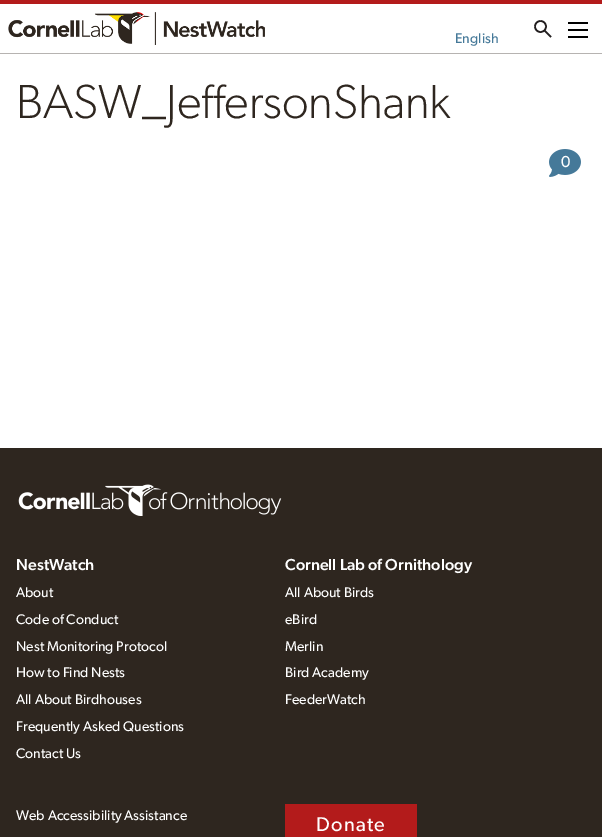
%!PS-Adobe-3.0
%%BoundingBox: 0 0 602 837
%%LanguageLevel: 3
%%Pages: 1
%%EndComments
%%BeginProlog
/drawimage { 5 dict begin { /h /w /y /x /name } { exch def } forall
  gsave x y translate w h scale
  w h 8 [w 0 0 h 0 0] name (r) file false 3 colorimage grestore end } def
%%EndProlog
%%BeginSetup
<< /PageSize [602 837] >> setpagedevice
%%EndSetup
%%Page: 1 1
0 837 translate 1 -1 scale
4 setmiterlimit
1 setgray
0 0 602 837 rectfill
0.702 0.106 0.106 setrgbcolor
0 0 602 4 rectfill
0.714 0.702 0.694 setrgbcolor
0 53 602 1 rectfill
(images/1.raw) 8 12 257 33 drawimage
0.137 0.122 0.125 setrgbcolor
1.6 setlinewidth
newpath 540.5 26.5 5.5 0 360 arc closepath stroke
newpath 544.5 30.5 moveto 551 37 lineto stroke
0 setgray
568 36 20 2 rectfill
568 29 20 2 rectfill
568 22 20 2 rectfill
(images/2.raw) 549 149 32 28 drawimage
0.18 0.149 0.122 setrgbcolor
0 448 602 389 rectfill
(images/3.raw) 18 484 264 32 drawimage
0.702 0.106 0.106 setrgbcolor
285 804 132 33 rectfill
/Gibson-Regular [14 0 0 -14 0 0] selectfont
0.271 0.475 0.6 setrgbcolor
455 43 moveto (English) show
/Gibson-Light [48 0 0 -48 0 0] selectfont
0.18 0.149 0.122 setrgbcolor
16 118 moveto (BASW_JeffersonShank) show
/Gibson-Regular [16 0 0 -16 0 0] selectfont
1 setgray
561 167 moveto (0) show
/Gibson-Medium [16 0 0 -16 0 0] selectfont
16 570 moveto (NestWatch) show
/Gibson-Regular [14 0 0 -14 0 0] selectfont
16 597 moveto (About) show
16 624 moveto (Code of Conduct) show
16 651 moveto (Nest Monitoring Protocol) show
16 677 moveto (How to Find Nests) show
16 704 moveto (All About Birdhouses) show
16 731 moveto (Frequently Asked Questions) show
16 758 moveto (Contact Us) show
/Gibson-Medium [16 0 0 -16 0 0] selectfont
285 570 moveto (Cornell Lab of Ornithology) show
/Gibson-Regular [14 0 0 -14 0 0] selectfont
285 597 moveto (All About Birds) show
285 624 moveto (eBird) show
285 651 moveto (Merlin) show
285 677 moveto (Bird Academy) show
285 704 moveto (FeederWatch) show
16 820 moveto (Web Accessibility Assistance) show
/Gibson-Regular [20 0 0 -20 0 0] selectfont
316 831 moveto 1.25 0 (Donate) ashow
showpage
%%EOF
